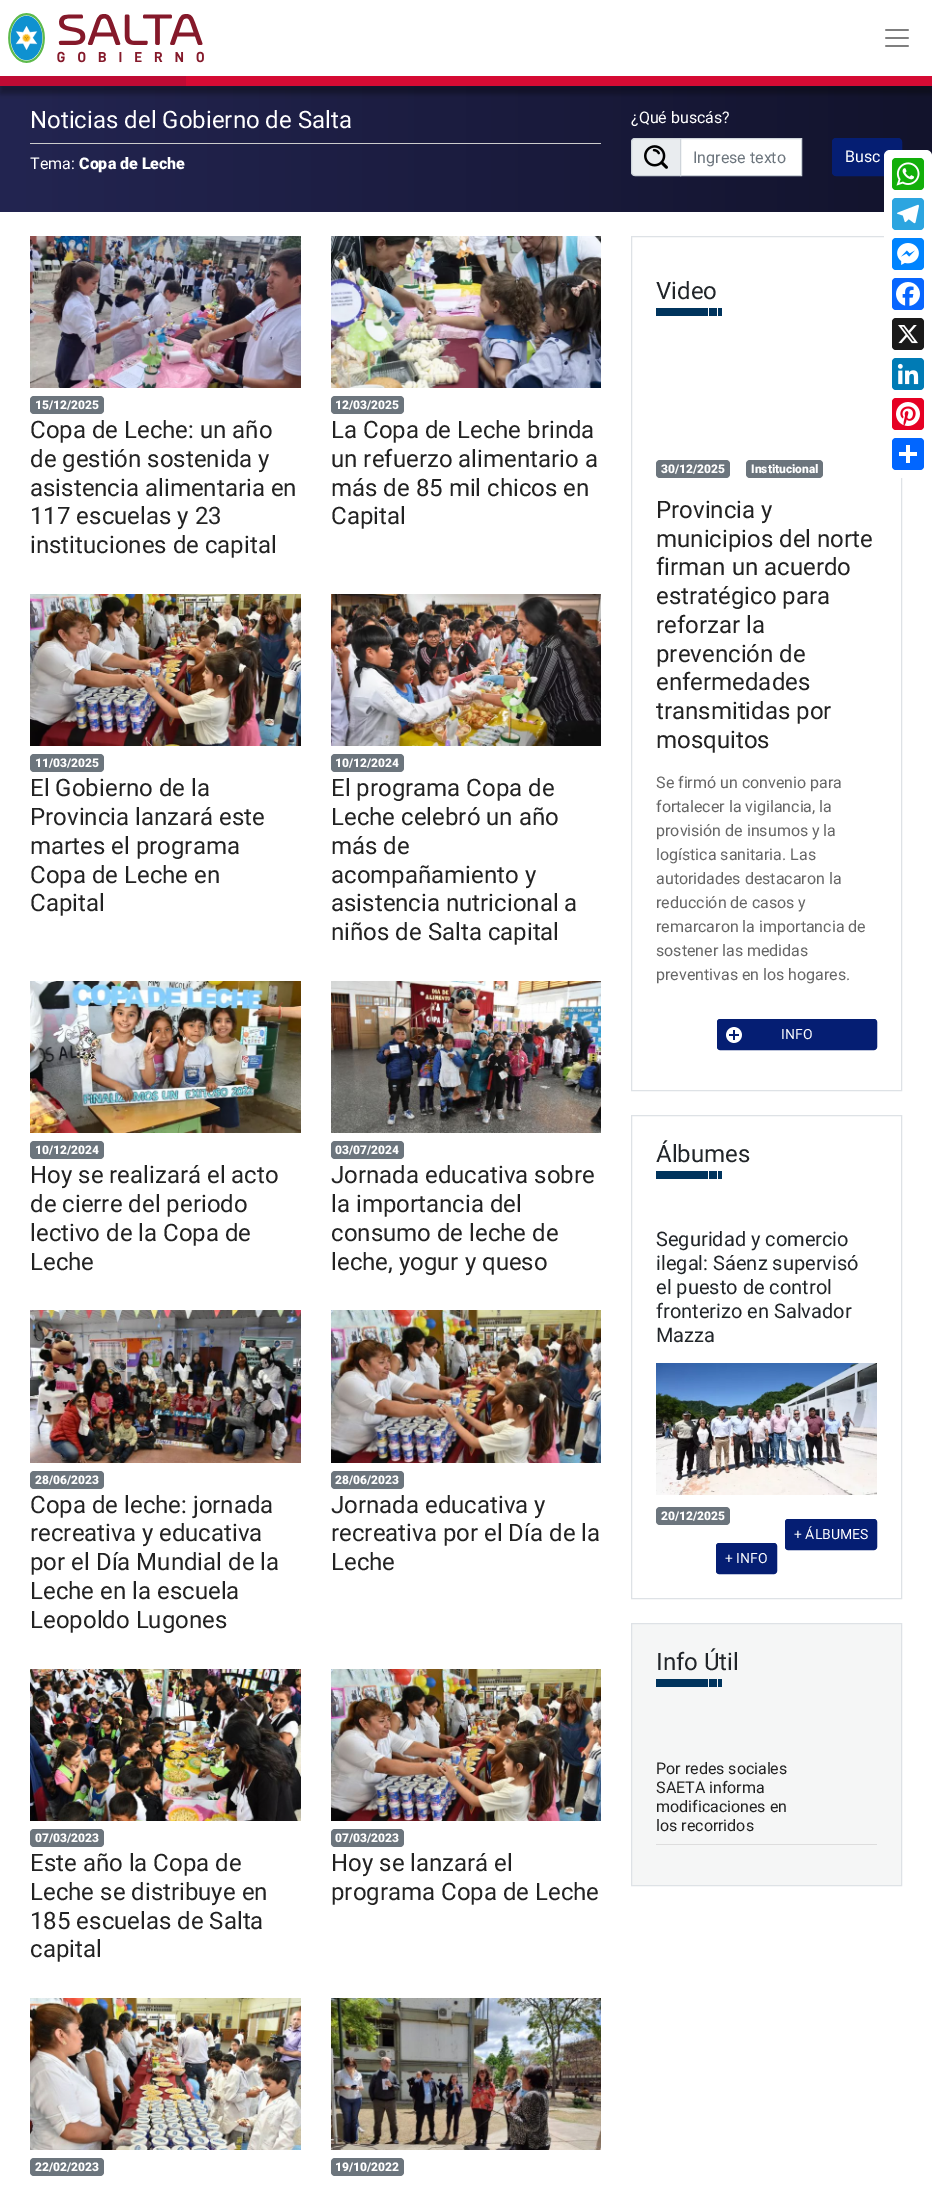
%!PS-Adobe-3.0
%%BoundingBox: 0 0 932 2194
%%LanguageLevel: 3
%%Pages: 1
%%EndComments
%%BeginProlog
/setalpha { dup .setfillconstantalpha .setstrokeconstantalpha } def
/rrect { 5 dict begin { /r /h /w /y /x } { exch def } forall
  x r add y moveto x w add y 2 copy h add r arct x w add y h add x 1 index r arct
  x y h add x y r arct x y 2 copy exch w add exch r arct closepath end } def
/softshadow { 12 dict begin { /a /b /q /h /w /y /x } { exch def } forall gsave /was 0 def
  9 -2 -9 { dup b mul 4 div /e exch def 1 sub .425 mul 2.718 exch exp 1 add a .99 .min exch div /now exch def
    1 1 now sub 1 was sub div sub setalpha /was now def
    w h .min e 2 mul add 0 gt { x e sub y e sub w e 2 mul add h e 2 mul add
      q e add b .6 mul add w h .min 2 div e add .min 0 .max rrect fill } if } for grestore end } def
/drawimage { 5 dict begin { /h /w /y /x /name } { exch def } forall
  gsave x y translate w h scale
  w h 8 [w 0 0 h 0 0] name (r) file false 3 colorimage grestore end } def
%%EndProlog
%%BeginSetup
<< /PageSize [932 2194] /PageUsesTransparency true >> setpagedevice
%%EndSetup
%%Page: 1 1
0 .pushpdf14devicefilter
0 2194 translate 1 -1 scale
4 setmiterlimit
1 setgray
0 0 932 2194 rectfill
gsave newpath 0 86 moveto 932 86 lineto 932 212 lineto 0 212 lineto closepath clip newpath
<< /ShadingType 2 /ColorSpace /DeviceRGB /Coords [0 149 932 149] /Extend [true true] /Function << /FunctionType 2 /Domain [0 1] /C0 [0.137 0.145 0.318] /C1 [0.071 0.075 0.173] /N 1 >> >> shfill grestore
gsave
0 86 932 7 rectclip
0 setgray
0 8 932 76 0 8 0.15 softshadow
grestore
(images/1.raw) 8 13 196 50 drawimage
(images/2.raw) 885 29 24 18 drawimage
0 setgray
0 84 932 10 0 2.5 0.3 softshadow
0.749 0.043 0.204 setrgbcolor
0 76 186 10 rectfill
0.835 0.043 0.204 setrgbcolor
186 76 746 10 rectfill
0.8 setgray
30 143 571 1 rectfill
0.914 0.925 0.937 setrgbcolor
newpath 635 138.5 moveto 680.5 138.5 lineto 680.5 175.5 lineto 635 175.5 lineto 633 175.5 631.5 174 631.5 172 curveto 631.5 142 lineto 631.5 140 633 138.5 635 138.5 curveto closepath gsave fill grestore
0.808 0.831 0.855 setrgbcolor
stroke
(images/3.raw) 644 145 24 24 drawimage
1 setgray
newpath 680.5 138.5 moveto 801.5 138.5 lineto 801.5 175.5 lineto 680.5 175.5 lineto closepath gsave fill grestore
0.808 0.831 0.855 setrgbcolor
stroke
0.02 0.118 0.451 setrgbcolor
832.5 138.5 69 37 3.5 rrect gsave fill grestore
stroke
(images/4.raw) 30 236 271 152 drawimage
0.424 0.459 0.49 setrgbcolor
30 396 74 18 4 rrect fill
(images/5.raw) 331 236 270 152 drawimage
331 396 73 18 4 rrect fill
(images/6.raw) 30 594 271 152 drawimage
30 754 74 18 4 rrect fill
(images/7.raw) 331 594 270 152 drawimage
331 754 73 18 4 rrect fill
(images/8.raw) 30 981 271 152 drawimage
30 1141 74 18 4 rrect fill
(images/9.raw) 331 981 270 152 drawimage
331 1141 73 18 4 rrect fill
(images/10.raw) 30 1310 271 153 drawimage
30 1471 74 18 4 rrect fill
(images/11.raw) 331 1310 270 153 drawimage
331 1471 73 18 4 rrect fill
(images/12.raw) 30 1669 271 152 drawimage
30 1829 74 18 4 rrect fill
(images/13.raw) 331 1669 270 152 drawimage
331 1829 73 18 4 rrect fill
(images/14.raw) 30 1998 271 152 drawimage
30 2158 74 18 4 rrect fill
(images/15.raw) 331 1998 270 152 drawimage
331 2158 73 18 4 rrect fill
0.871 0.886 0.902 setrgbcolor
631.5 236.5 270 854 rectstroke
(images/16.raw) 656 308 66 8 drawimage
0.424 0.459 0.49 setrgbcolor
656 460 74 18 4 rrect fill
746 460 77 18 4 rrect fill
0.02 0.118 0.451 setrgbcolor
717.5 1019.5 159 30 2.5 rrect gsave fill grestore
stroke
(images/17.raw) 726 1027 16 16 drawimage
0.871 0.886 0.902 setrgbcolor
631.5 1115.5 270 483 rectstroke
(images/16.raw) 656 1171 66 8 drawimage
(images/18.raw) 656 1363 221 132 drawimage
0.424 0.459 0.49 setrgbcolor
656 1507 74 18 4 rrect fill
0.02 0.118 0.451 setrgbcolor
785.5 1519.5 91 30 2.5 rrect gsave fill grestore
stroke
716.5 1543.5 60 30 2.5 rrect gsave fill grestore
stroke
0.961 0.965 0.965 setrgbcolor
newpath 631.5 1623.5 moveto 901.5 1623.5 lineto 901.5 1885.5 lineto 631.5 1885.5 lineto closepath gsave fill grestore
0.871 0.886 0.902 setrgbcolor
stroke
(images/19.raw) 656 1679 66 8 drawimage
0.867 setgray
656 1844 221 1 rectfill
1 setgray
884 150 48 328 6 rrect fill
0.071 0.686 0.039 setrgbcolor
892 158 32 32 4 rrect fill
(images/20.raw) 896 162 24 24 drawimage
0.173 0.647 0.878 setrgbcolor
892 198 32 32 4 rrect fill
(images/21.raw) 897 204 22 20 drawimage
0 0.518 1 setrgbcolor
892 238 32 32 4 rrect fill
(images/22.raw) 897 243 22 22 drawimage
0.031 0.4 1 setrgbcolor
892 278 32 32 4 rrect fill
(images/23.raw) 896 282 24 24 drawimage
0.102 setgray
892 318 32 32 4 rrect fill
(images/24.raw) 898 325 20 19 drawimage
0 0.482 0.71 setrgbcolor
892 358 32 32 4 rrect fill
(images/25.raw) 897 363 22 22 drawimage
0.902 0 0.137 setrgbcolor
892 398 32 32 4 rrect fill
(images/26.raw) 896 402 24 24 drawimage
0.004 0.4 1 setrgbcolor
892 438 32 32 4 rrect fill
1 setgray
906 445 4 18 rectfill
899 452 18 4 rectfill
/Roboto-Regular [24 0 0 -24 0 0] selectfont
30 128 moveto (Noticias del Gobierno de Salta) show
/Roboto-Regular [16 0 0 -16 0 0] selectfont
30 169 moveto (Tema:) show
/Roboto-Black [16 0 0 -16 0 0] selectfont
79 169 moveto (Copa de Leche) show
/Roboto-Regular [16 0 0 -16 0 0] selectfont
631 123 moveto (¿Qué buscás?) show
0.424 0.459 0.49 setrgbcolor
693 163 moveto (Ingrese texto) show
1 setgray
845 162 moveto (Busc) show
/Roboto-Black [12 0 0 -12 0 0] selectfont
35 409 moveto (15/12/2025) show
/Roboto-Regular [24 0 0 -24 0 0] selectfont
0.133 setgray
30 438 moveto (Copa de Leche: un año) show
30 467 moveto (de gestión sostenida y) show
30 496 moveto (asistencia alimentaria en) show
30 524 moveto (117 escuelas y 23) show
30 553 moveto (instituciones de capital) show
/Roboto-Black [12 0 0 -12 0 0] selectfont
1 setgray
335 409 moveto (12/03/2025) show
/Roboto-Regular [24 0 0 -24 0 0] selectfont
0.133 setgray
331 438 moveto (La Copa de Leche brinda) show
331 467 moveto (un refuerzo alimentario a) show
331 496 moveto (más de 85 mil chicos en) show
331 524 moveto (Capital) show
/Roboto-Black [12 0 0 -12 0 0] selectfont
1 setgray
35 767 moveto (11/03/2025) show
/Roboto-Regular [24 0 0 -24 0 0] selectfont
0.133 setgray
30 796 moveto (El Gobierno de la) show
30 825 moveto (Provincia lanzará este) show
30 854 moveto (martes el programa) show
30 883 moveto (Copa de Leche en) show
30 911 moveto (Capital) show
/Roboto-Black [12 0 0 -12 0 0] selectfont
1 setgray
335 767 moveto (10/12/2024) show
/Roboto-Regular [24 0 0 -24 0 0] selectfont
0.133 setgray
331 796 moveto (El programa Copa de) show
331 825 moveto (Leche celebró un año) show
331 854 moveto (más de) show
331 883 moveto (acompañamiento y) show
331 911 moveto (asistencia nutricional a) show
331 940 moveto (niños de Salta capital) show
/Roboto-Black [12 0 0 -12 0 0] selectfont
1 setgray
35 1154 moveto (10/12/2024) show
/Roboto-Regular [24 0 0 -24 0 0] selectfont
0.133 setgray
30 1183 moveto (Hoy se realizará el acto) show
30 1212 moveto (de cierre del periodo) show
30 1241 moveto (lectivo de la Copa de) show
30 1270 moveto (Leche) show
/Roboto-Black [12 0 0 -12 0 0] selectfont
1 setgray
335 1154 moveto (03/07/2024) show
/Roboto-Regular [24 0 0 -24 0 0] selectfont
0.133 setgray
331 1183 moveto (Jornada educativa sobre) show
331 1212 moveto (la importancia del) show
331 1241 moveto (consumo de leche de) show
331 1270 moveto (leche, yogur y queso) show
/Roboto-Black [12 0 0 -12 0 0] selectfont
1 setgray
35 1484 moveto (28/06/2023) show
/Roboto-Regular [24 0 0 -24 0 0] selectfont
0.133 setgray
30 1513 moveto (Copa de leche: jornada) show
30 1541 moveto (recreativa y educativa) show
30 1570 moveto (por el Día Mundial de la) show
30 1599 moveto (Leche en la escuela) show
30 1628 moveto (Leopoldo Lugones) show
/Roboto-Black [12 0 0 -12 0 0] selectfont
1 setgray
335 1484 moveto (28/06/2023) show
/Roboto-Regular [24 0 0 -24 0 0] selectfont
0.133 setgray
331 1513 moveto (Jornada educativa y) show
331 1541 moveto (recreativa por el Día de la) show
331 1570 moveto (Leche) show
/Roboto-Black [12 0 0 -12 0 0] selectfont
1 setgray
35 1842 moveto (07/03/2023) show
/Roboto-Regular [24 0 0 -24 0 0] selectfont
0.133 setgray
30 1871 moveto (Este año la Copa de) show
30 1900 moveto (Leche se distribuye en) show
30 1929 moveto (185 escuelas de Salta) show
30 1957 moveto (capital) show
/Roboto-Black [12 0 0 -12 0 0] selectfont
1 setgray
335 1842 moveto (07/03/2023) show
/Roboto-Regular [24 0 0 -24 0 0] selectfont
0.133 setgray
331 1871 moveto (Hoy se lanzará el) show
331 1900 moveto (programa Copa de Leche) show
/Roboto-Black [12 0 0 -12 0 0] selectfont
1 setgray
35 2171 moveto (22/02/2023) show
335 2171 moveto (19/10/2022) show
/Roboto-Regular [24 0 0 -24 0 0] selectfont
0.129 0.145 0.161 setrgbcolor
656 299 moveto (Video) show
/Roboto-Black [12 0 0 -12 0 0] selectfont
1 setgray
661 473 moveto (30/12/2025) show
751 473 moveto (Institucional) show
/Roboto-Regular [24 0 0 -24 0 0] selectfont
0.133 setgray
656 518 moveto (Provincia y) show
656 547 moveto (municipios del norte) show
656 575 moveto (firman un acuerdo) show
656 604 moveto (estratégico para) show
656 633 moveto (reforzar la) show
656 662 moveto (prevención de) show
656 690 moveto (enfermedades) show
656 719 moveto (transmitidas por) show
656 748 moveto (mosquitos) show
/Roboto-Regular [16 0 0 -16 0 0] selectfont
0.4 setgray
656 788 moveto (Se firmó un convenio para) show
656 812 moveto (fortalecer la vigilancia, la) show
656 836 moveto (provisión de insumos y la) show
656 860 moveto (logística sanitaria. Las) show
656 884 moveto (autoridades destacaron la) show
656 908 moveto (reducción de casos y) show
656 932 moveto (remarcaron la importancia de) show
656 956 moveto (sostener las medidas) show
656 980 moveto (preventivas en los hogares.) show
/Roboto-Regular [14 0 0 -14 0 0] selectfont
1 setgray
781 1039 moveto (INFO) show
/Roboto-Regular [24 0 0 -24 0 0] selectfont
0.129 0.145 0.161 setrgbcolor
656 1162 moveto (Álbumes) show
/Roboto-Regular [20 0 0 -20 0 0] selectfont
656 1246 moveto (Seguridad y comercio) show
656 1270 moveto (ilegal: Sáenz supervisó) show
656 1294 moveto (el puesto de control) show
656 1318 moveto (fronterizo en Salvador) show
656 1342 moveto (Mazza) show
/Roboto-Black [12 0 0 -12 0 0] selectfont
1 setgray
661 1520 moveto (20/12/2025) show
/Roboto-Regular [14 0 0 -14 0 0] selectfont
794 1539 moveto (+ ÁLBUMES) show
725 1563 moveto (+ INFO) show
/Roboto-Regular [24 0 0 -24 0 0] selectfont
0.129 0.145 0.161 setrgbcolor
656 1670 moveto (Info Útil) show
/Roboto-Regular [16 0 0 -16 0 0] selectfont
0.133 setgray
656 1774 moveto (Por redes sociales) show
656 1793 moveto (SAETA informa) show
656 1812 moveto (modificaciones en) show
656 1831 moveto (los recorridos) show
.poppdf14devicefilter showpage
%%EOF
